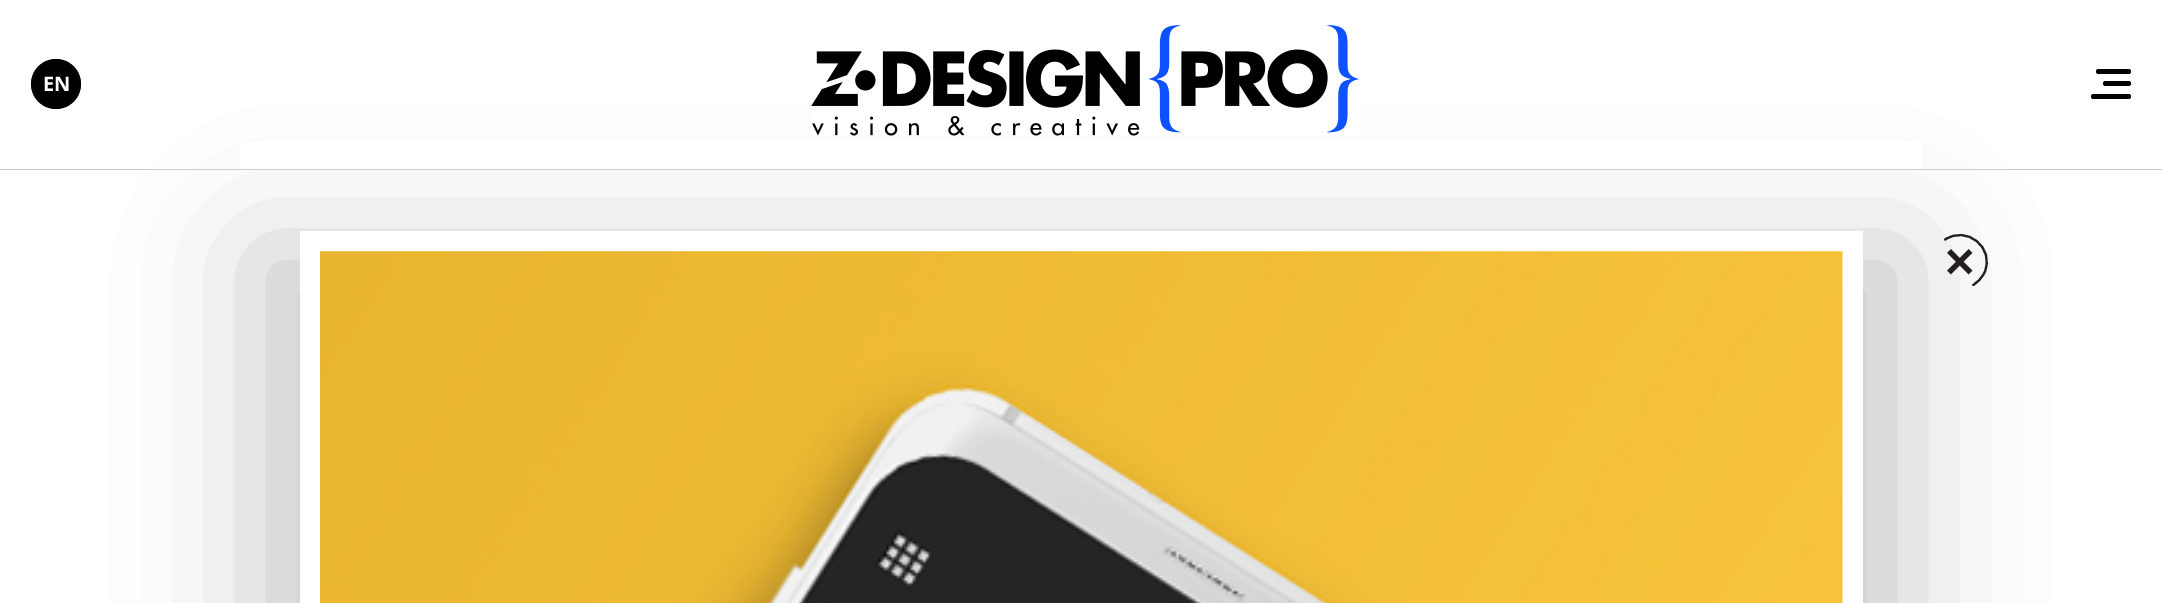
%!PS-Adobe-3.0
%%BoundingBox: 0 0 2162 603
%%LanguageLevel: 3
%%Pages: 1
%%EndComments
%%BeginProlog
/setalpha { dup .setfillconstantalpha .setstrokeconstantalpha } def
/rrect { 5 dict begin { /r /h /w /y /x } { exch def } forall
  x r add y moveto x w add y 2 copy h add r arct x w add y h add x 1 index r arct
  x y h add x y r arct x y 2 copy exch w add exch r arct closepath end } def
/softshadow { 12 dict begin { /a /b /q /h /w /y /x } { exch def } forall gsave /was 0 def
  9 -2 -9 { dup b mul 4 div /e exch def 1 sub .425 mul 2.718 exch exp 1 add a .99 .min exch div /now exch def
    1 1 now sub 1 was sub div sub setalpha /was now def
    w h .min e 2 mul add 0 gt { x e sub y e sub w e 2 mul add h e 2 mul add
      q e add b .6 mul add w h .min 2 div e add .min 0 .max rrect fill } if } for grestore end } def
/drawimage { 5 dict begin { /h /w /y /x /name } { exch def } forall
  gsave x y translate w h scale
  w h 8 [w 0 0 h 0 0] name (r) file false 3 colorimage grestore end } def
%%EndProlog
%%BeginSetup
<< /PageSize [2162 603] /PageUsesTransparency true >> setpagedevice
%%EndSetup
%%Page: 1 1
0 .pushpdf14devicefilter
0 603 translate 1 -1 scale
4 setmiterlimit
1 setgray
0 0 2162 603 rectfill
0.8 setgray
250 244 1663 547 0 62.5 1 softshadow
1 setgray
241 141 1681 28 rectfill
0.8 setgray
0 169 2162 1 rectfill
0 setgray
newpath 56 84 25 0 360 arc closepath fill
(images/1.raw) 811 25 548 111 drawimage
2096 69 35 5 2.5 rrect fill
2103 81 28 5 2.5 rrect fill
2091 94 40 5 2.5 rrect fill
1 setgray
300 231 1563 372 rectfill
(images/2.raw) 320 251 1523 352 drawimage
gsave
1944 234 44 52 rectclip
0.137 0.122 0.125 setrgbcolor
2.1 setlinewidth
newpath 1944.5 240 moveto 1966 224.5 1995.5 247.5 1984.5 272.5 curveto 1982 278 1977.5 282.5 1972.5 285.5 curveto stroke
grestore
0.137 0.122 0.125 setrgbcolor
5.2 setlinewidth
newpath 1949 251 moveto 1970.5 272.5 lineto 1970.5 251 moveto 1949 272.5 lineto stroke
/OpenSans-Bold [20 0 0 -20 0 0] selectfont
1 setgray
43 91 moveto (EN) show
.poppdf14devicefilter showpage
%%EOF
